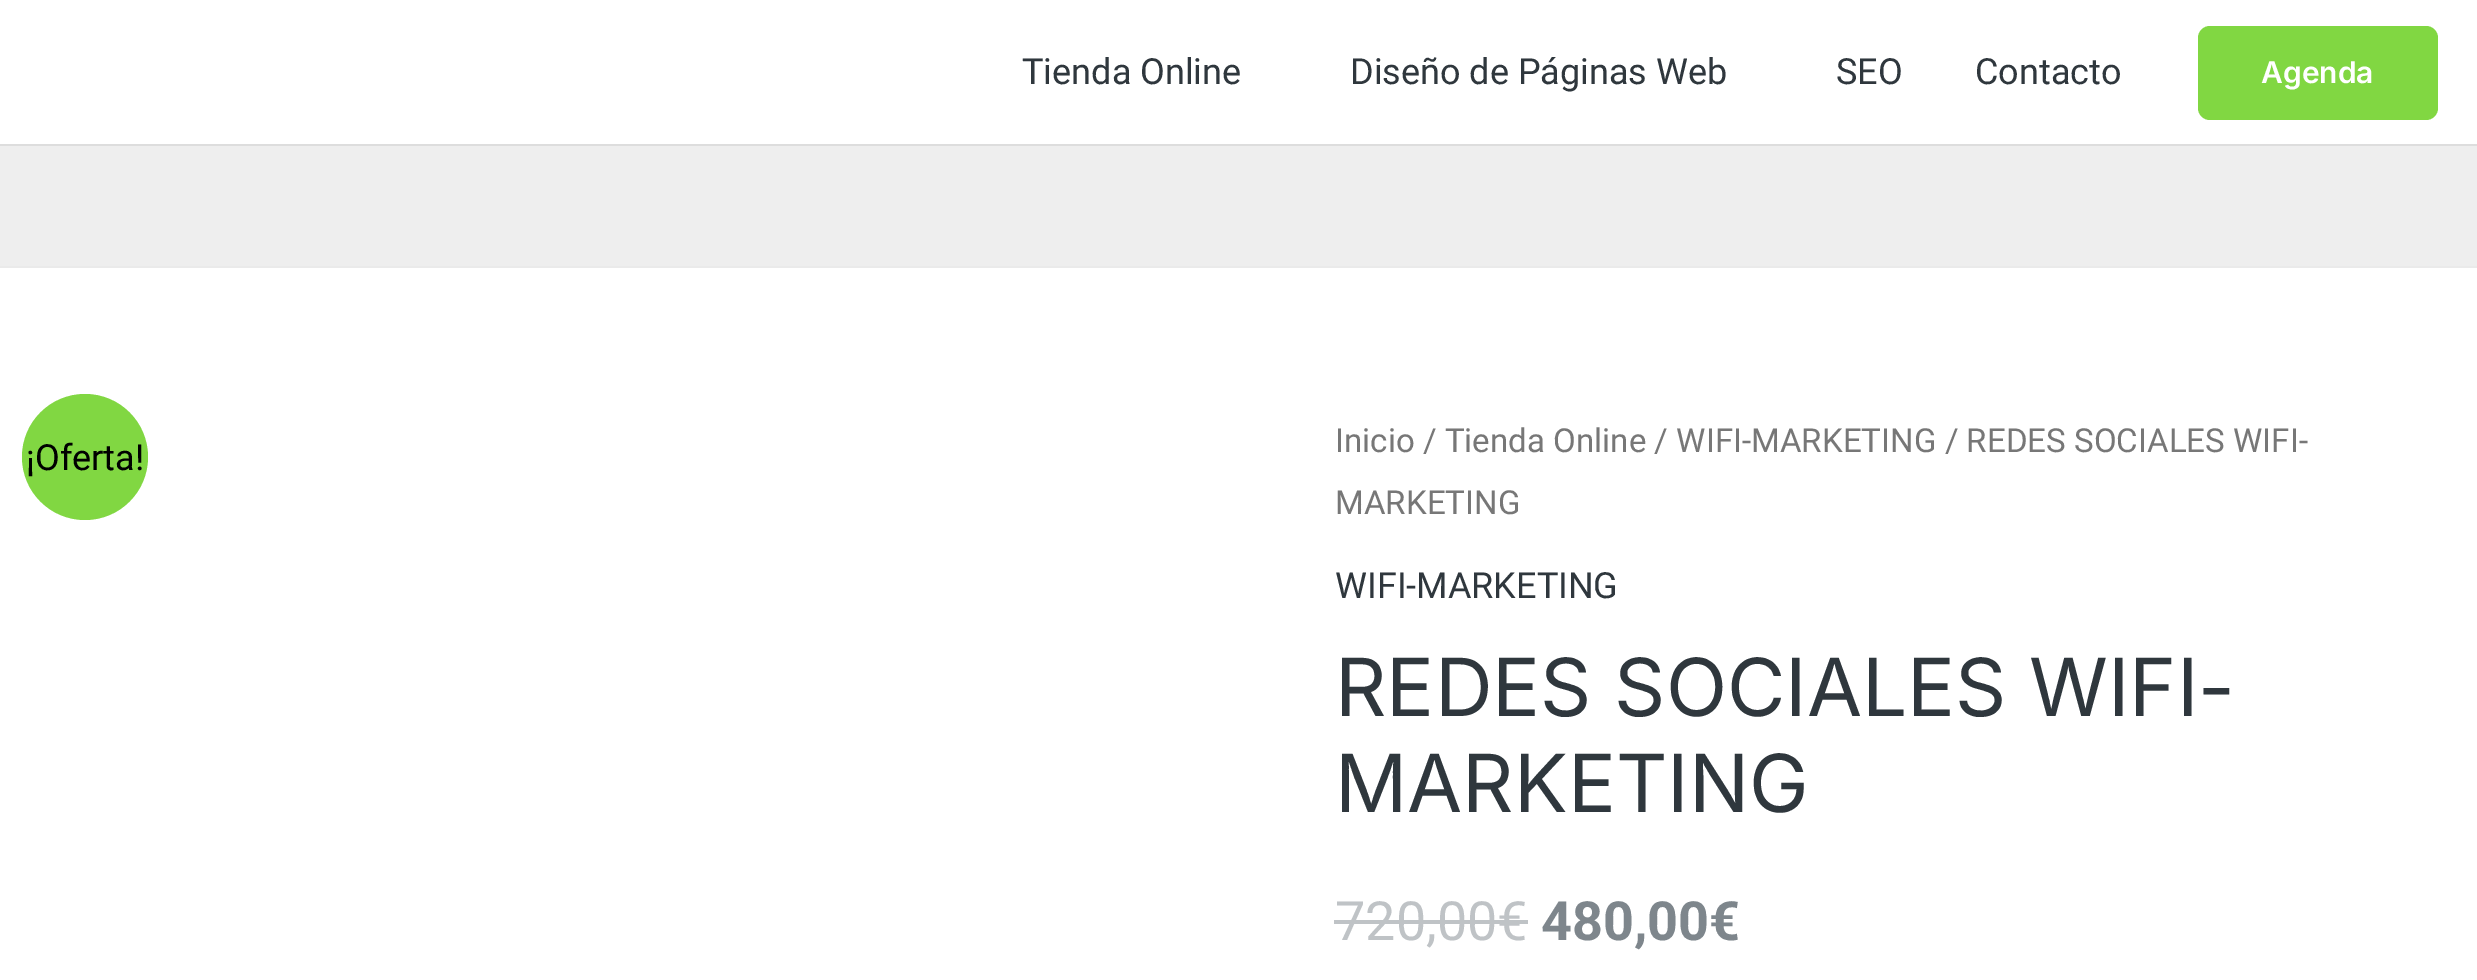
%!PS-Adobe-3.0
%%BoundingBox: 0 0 2477 980
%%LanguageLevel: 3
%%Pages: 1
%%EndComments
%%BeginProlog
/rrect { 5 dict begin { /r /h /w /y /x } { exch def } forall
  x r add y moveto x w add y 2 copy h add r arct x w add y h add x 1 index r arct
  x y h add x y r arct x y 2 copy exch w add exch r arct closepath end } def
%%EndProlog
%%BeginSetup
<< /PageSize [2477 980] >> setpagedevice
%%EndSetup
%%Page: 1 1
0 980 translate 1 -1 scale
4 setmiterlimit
1 setgray
0 0 2477 980 rectfill
0.867 setgray
0 144 2477 2 rectfill
0.506 0.843 0.259 setrgbcolor
2198 26 240 94 12 rrect fill
0.933 setgray
0 146 2477 120 rectfill
0.918 setgray
0 266 2477 2 rectfill
0.506 0.843 0.259 setrgbcolor
newpath 85 457 63 0 360 arc closepath fill
0.749 0.765 0.776 setrgbcolor
1334 920 194 4 rectfill
/Roboto-Regular [36 0 0 -36 0 0] selectfont
0.184 0.216 0.239 setrgbcolor
1022 84 moveto (Tienda Online) show
1350 84 moveto (Diseño de Páginas Web) show
1836 84 moveto (SEO) show
1975 84 moveto (Contacto) show
/Inter-SemiBold [30 0 0 -30 0 0] selectfont
1 setgray
2261 83 moveto (Agenda) show
/Roboto-Regular [36 0 0 -36 0 0] selectfont
0 setgray
26 470 moveto (¡Oferta!) show
/Roboto-Regular [33.1 0 0 -33.1 0 0] selectfont
0.467 setgray
1335 452 moveto (Inicio / Tienda Online / WIFI-MARKETING / REDES SOCIALES WIFI-) show
1335 514 moveto (MARKETING) show
/Roboto-Regular [36 0 0 -36 0 0] selectfont
0.184 0.216 0.239 setrgbcolor
1335 598 moveto (WIFI-MARKETING) show
/Inter-Regular [80 0 0 -80 0 0] selectfont
1335 716 moveto (REDES SOCIALES WIFI-) show
1335 812 moveto (MARKETING) show
/Roboto-Regular [54 0 0 -54 0 0] selectfont
0.749 0.765 0.776 setrgbcolor
1335 940 moveto (720,00€) show
/Roboto-Bold [54 0 0 -54 0 0] selectfont
0.494 0.525 0.549 setrgbcolor
1541 940 moveto (480,00€) show
showpage
%%EOF
